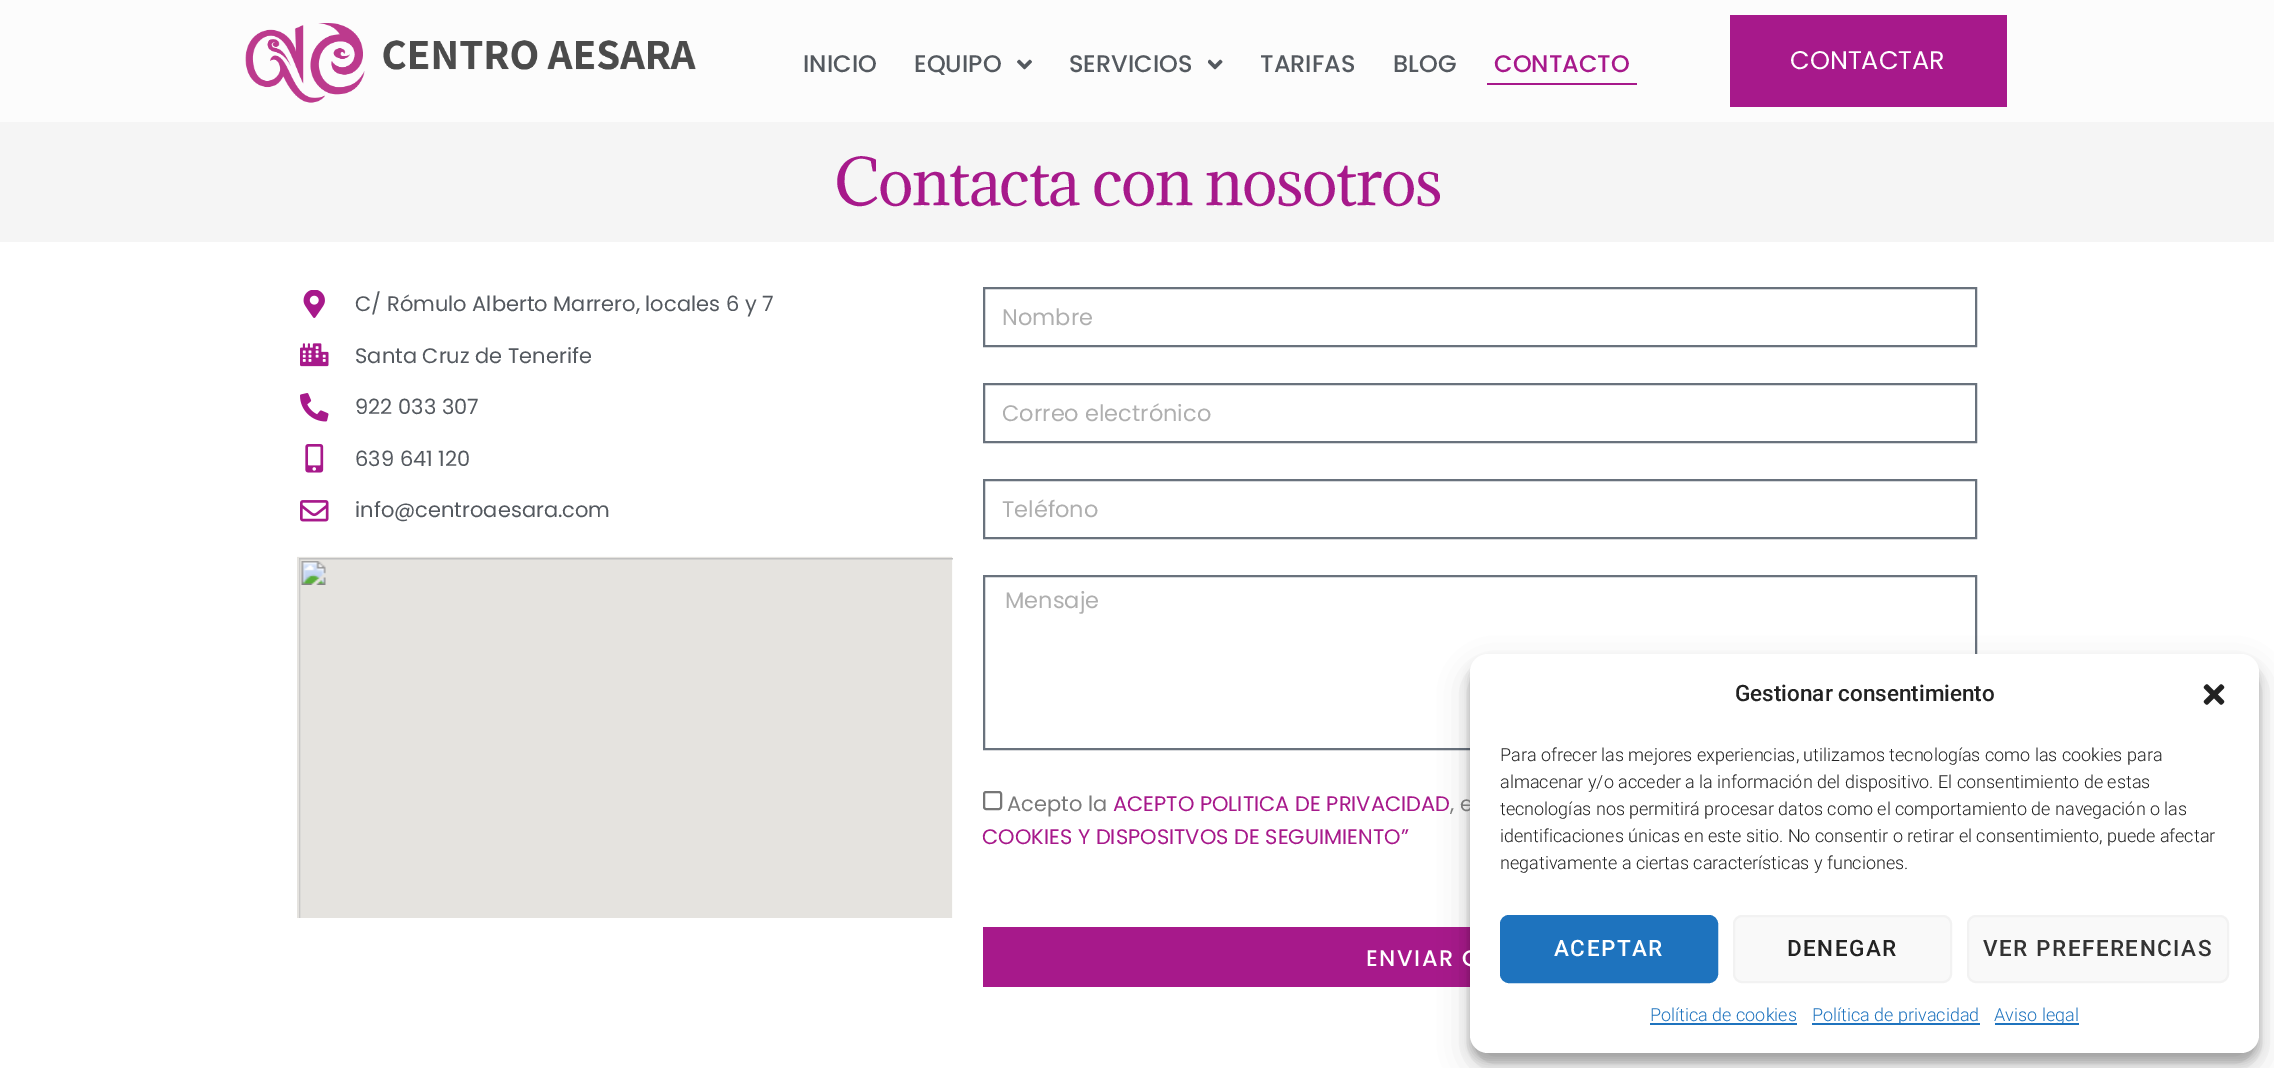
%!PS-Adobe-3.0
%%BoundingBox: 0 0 2274 1068
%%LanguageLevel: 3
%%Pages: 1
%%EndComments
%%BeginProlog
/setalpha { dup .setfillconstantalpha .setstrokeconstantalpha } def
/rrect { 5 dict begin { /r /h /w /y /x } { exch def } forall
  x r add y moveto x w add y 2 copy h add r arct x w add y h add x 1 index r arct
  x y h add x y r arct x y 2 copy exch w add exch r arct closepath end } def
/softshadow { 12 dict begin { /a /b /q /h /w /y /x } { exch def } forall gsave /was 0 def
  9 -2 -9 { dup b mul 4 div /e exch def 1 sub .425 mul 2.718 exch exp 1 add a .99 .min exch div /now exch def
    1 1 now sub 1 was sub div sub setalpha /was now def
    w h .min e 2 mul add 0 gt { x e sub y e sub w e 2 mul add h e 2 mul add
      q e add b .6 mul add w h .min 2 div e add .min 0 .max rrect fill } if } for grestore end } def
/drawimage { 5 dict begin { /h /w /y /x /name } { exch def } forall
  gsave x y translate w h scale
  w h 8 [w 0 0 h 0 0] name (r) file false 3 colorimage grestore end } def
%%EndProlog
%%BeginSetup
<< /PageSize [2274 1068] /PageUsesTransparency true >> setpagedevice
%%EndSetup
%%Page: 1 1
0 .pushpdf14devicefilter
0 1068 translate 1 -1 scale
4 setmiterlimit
0.961 setgray
0 0 2274 1068 rectfill
0.988 setgray
0 0 2274 122 rectfill
(images/1.raw) 245 23 451 80 drawimage
(images/2.raw) 1017 59 15 11 drawimage
(images/3.raw) 1208 59 15 11 drawimage
0.655 0.098 0.545 setrgbcolor
1487 83 150 2 rectfill
1730 15 277 92 rectfill
1 setgray
0 242 2274 826 rectfill
(images/4.raw) 303 290 22 28 drawimage
(images/5.raw) 300 343 29 24 drawimage
(images/6.raw) 300 393 29 29 drawimage
(images/7.raw) 305 444 19 29 drawimage
(images/8.raw) 300 500 29 22 drawimage
(images/9.raw) 297 556 656 362 drawimage
0.412 0.447 0.49 setrgbcolor
2 setlinewidth
984 288 992 58 rectstroke
984 384 992 58 rectstroke
984 480 992 58 rectstroke
984 576 992 173 rectstroke
0.463 setgray
984 792 17 17 2 rrect stroke
0.655 0.098 0.545 setrgbcolor
983 927 487 60 rectfill
0 setgray
1470 663 789 399 18 4.5 0.23 softshadow
1470 669 789 399 18 15 0.19 softshadow
/Poppins-Medium [24 0 0 -24 0 0] selectfont
0.329 0.349 0.373 setrgbcolor
803 72 moveto (INICIO) show
914 72 moveto (EQUIPO) show
1069 72 moveto (SERVICIOS) show
1260 72 moveto (TARIFAS) show
1393 72 moveto (BLOG) show
0.655 0.098 0.545 setrgbcolor
1494 72 moveto (CONTACTO) show
/Poppins-Regular [25.5 0 0 -25.5 0 0] selectfont
1 setgray
1790 69 moveto (CONTACTAR) show
/Adamina-Regular [60 0 0 -60 0 0] selectfont
0.655 0.098 0.545 setrgbcolor
834 205 moveto -1.5 0 (Contacta con nosotros) ashow
/Poppins-Regular [21 0 0 -21 0 0] selectfont
0.329 0.349 0.373 setrgbcolor
355 311 moveto (C/ Rómulo Alberto Marrero, locales 6 y 7) show
355 363 moveto (Santa Cruz de Tenerife) show
355 414 moveto (922 033 307) show
355 466 moveto (639 641 120) show
355 517 moveto (info@centroaesara.com) show
/Poppins-Regular [22.5 0 0 -22.5 0 0] selectfont
0.686 setgray
1002 325 moveto (Nombre) show
1002 421 moveto (Correo electrónico) show
1002 517 moveto (Teléfono) show
1005 608 moveto (Mensaje) show
/Poppins-Regular [21 0 0 -21 0 0] selectfont
0.478 setgray
1007 811 moveto (Acepto la) show
0.655 0.098 0.545 setrgbcolor
1113 811 moveto (ACEPTO POLITICA DE PRIVACIDAD) show
0.478 setgray
1450 811 moveto (, e) show
0.655 0.098 0.545 setrgbcolor
982 844 moveto (COOKIES Y DISPOSITVOS DE SEGUIMIENTO”) show
/Poppins-Medium [22.5 0 0 -22.5 0 0] selectfont
1 setgray
1366 966 moveto 1.5 0 (ENVIAR C) ashow
1470 654 789 399 18 rrect fill
/Roboto-Medium [22.5 0 0 -22.5 0 0] selectfont
0.133 setgray
1735 701 moveto (Gestionar consentimiento) show
(images/10.raw) 2203 684 22 21 drawimage
/Roboto-Light [18 0 0 -18 0 0] selectfont
1500 761 moveto (Para ofrecer las mejores experiencias, utilizamos tecnologías como las cookies para) show
1500 788 moveto (almacenar y/o acceder a la información del dispositivo. El consentimiento de estas) show
1500 815 moveto (tecnologías nos permitirá procesar datos como el comportamiento de navegación o las) show
1500 842 moveto (identificaciones únicas en este sitio. No consentir o retirar el consentimiento, puede afectar) show
1500 869 moveto (negativamente a ciertas características y funciones.) show
0.118 0.451 0.745 setrgbcolor
1501 916 216 66 8 rrect gsave fill grestore
stroke
/Roboto-Medium [22.5 0 0 -22.5 0 0] selectfont
1 setgray
1554 956 moveto 1.5 0 (ACEPTAR) ashow
0.976 setgray
1734 916 217 66 8 rrect gsave fill grestore
0.949 setgray
stroke
0.133 setgray
1787 956 moveto 1.5 0 (DENEGAR) ashow
0.976 setgray
1968 916 260 66 8 rrect gsave fill grestore
0.949 setgray
stroke
0.2 setgray
1983 956 moveto 1.5 0 (VER PREFERENCIAS) ashow
/Roboto-Light [18 0 0 -18 0 0] selectfont
0.118 0.451 0.745 setrgbcolor
1650 1021 moveto (Política de cookies) show
1650 1023 147 2 rectfill
1812 1023 168 2 rectfill
1812 1021 moveto (Política de privacidad) show
1995 1023 84 2 rectfill
1994 1021 moveto (Aviso legal) show
.poppdf14devicefilter showpage
%%EOF
